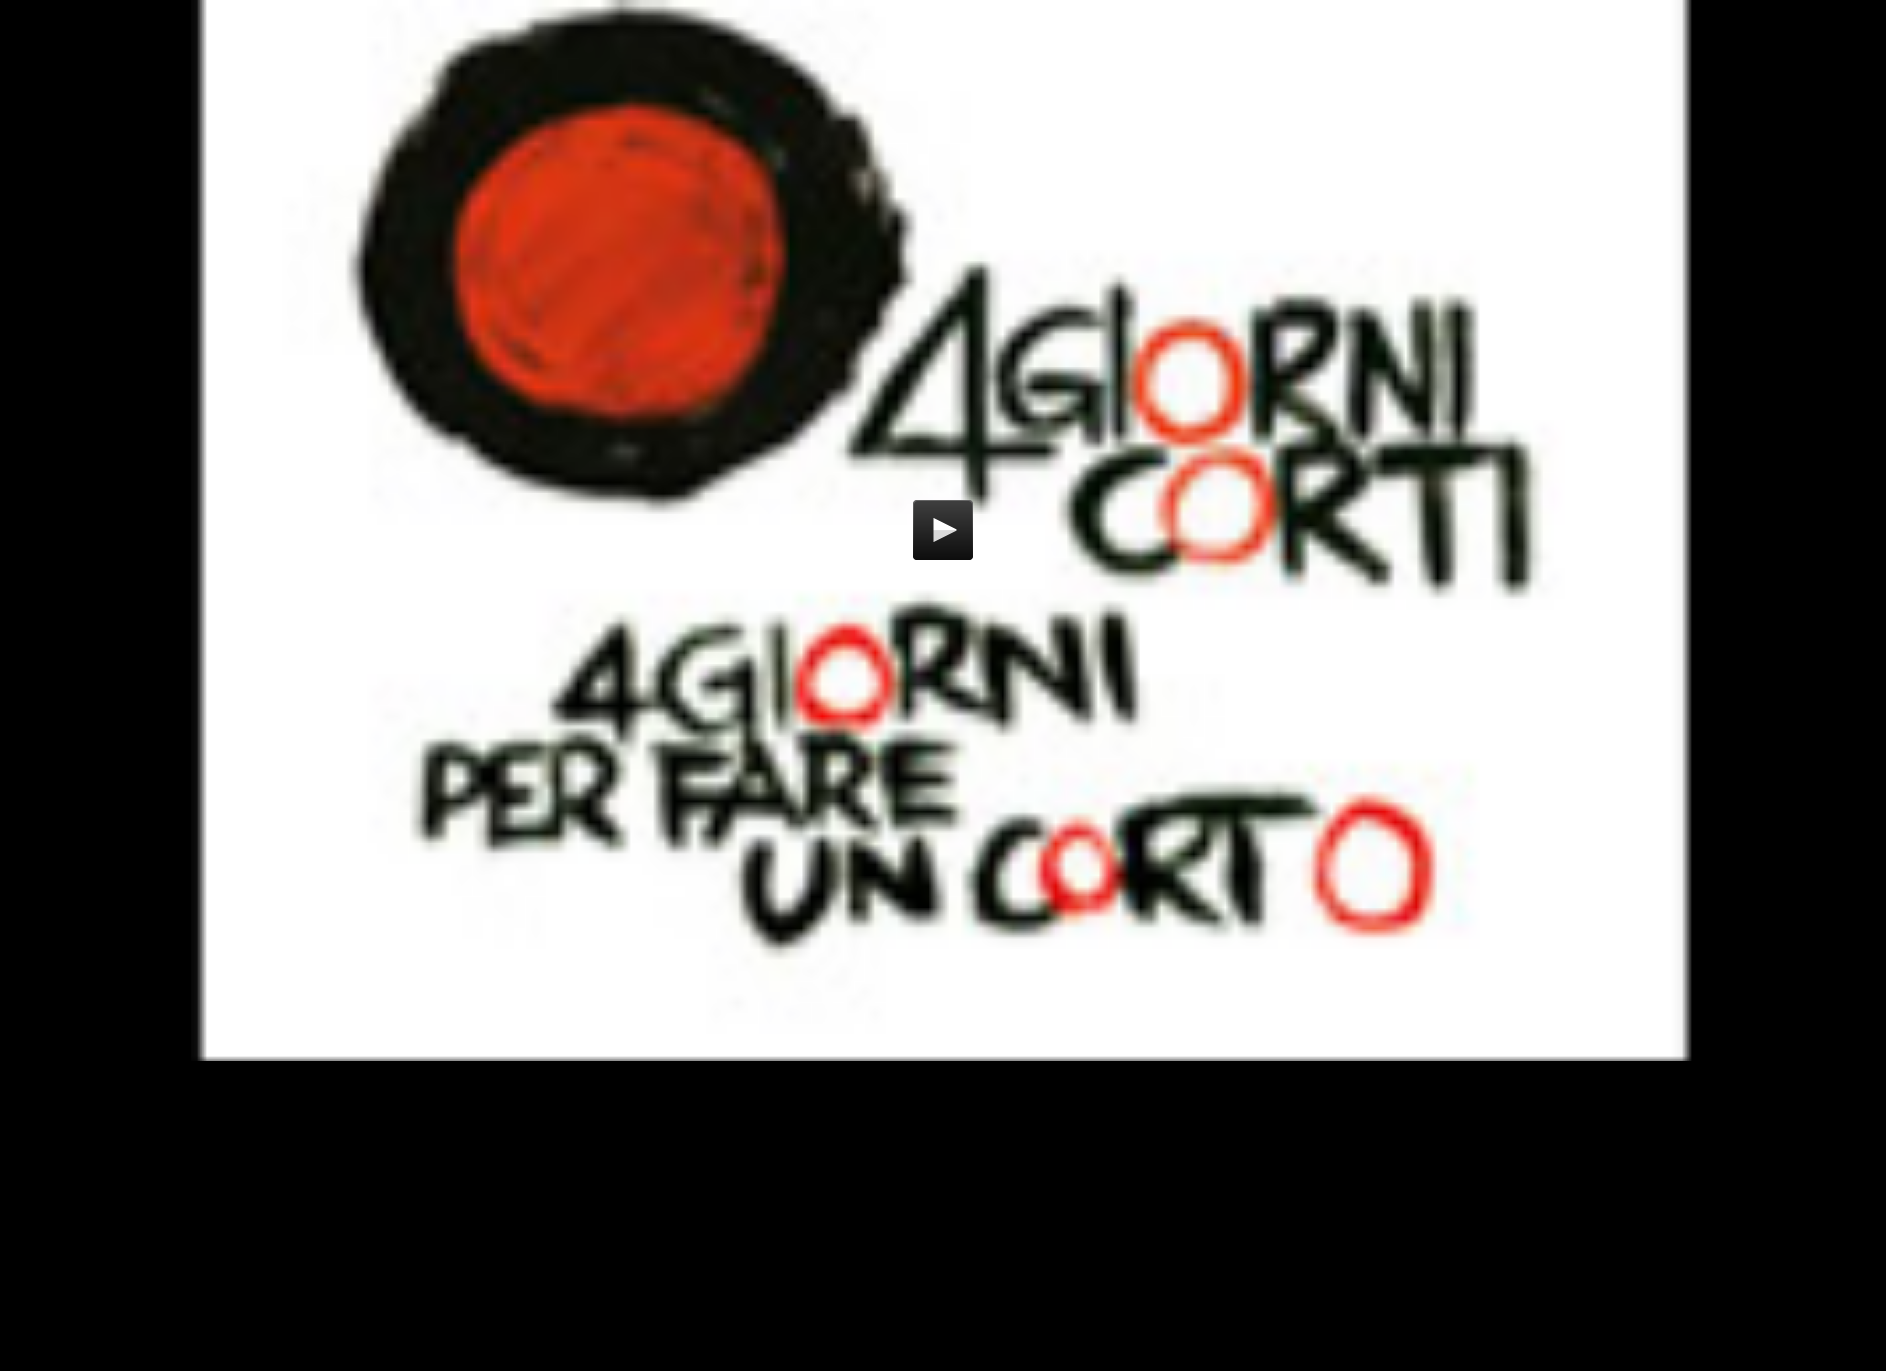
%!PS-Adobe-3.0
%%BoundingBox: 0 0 1886 1371
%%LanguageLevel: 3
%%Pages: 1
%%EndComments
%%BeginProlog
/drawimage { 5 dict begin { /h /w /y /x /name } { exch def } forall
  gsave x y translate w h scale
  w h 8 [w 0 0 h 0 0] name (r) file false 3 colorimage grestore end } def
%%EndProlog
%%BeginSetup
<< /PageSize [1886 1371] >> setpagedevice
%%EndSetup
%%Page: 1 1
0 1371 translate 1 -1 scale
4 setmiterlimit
0 setgray
0 0 1886 1371 rectfill
(images/1.raw) 191 0 1501 1061 drawimage
(images/2.raw) 913 500 60 60 drawimage
(images/3.raw) 933 518 24 24 drawimage
showpage
%%EOF
